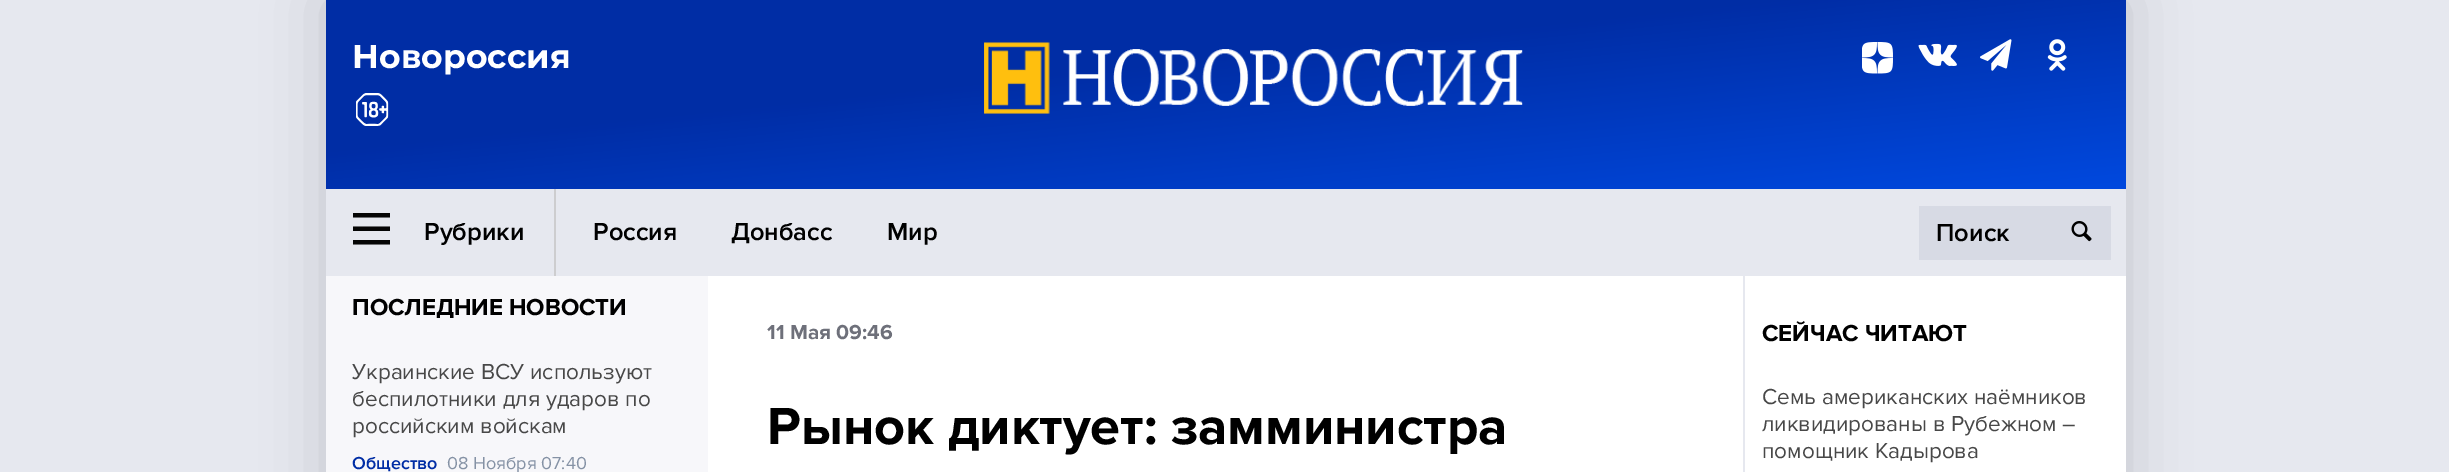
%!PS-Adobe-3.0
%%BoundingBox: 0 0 2449 472
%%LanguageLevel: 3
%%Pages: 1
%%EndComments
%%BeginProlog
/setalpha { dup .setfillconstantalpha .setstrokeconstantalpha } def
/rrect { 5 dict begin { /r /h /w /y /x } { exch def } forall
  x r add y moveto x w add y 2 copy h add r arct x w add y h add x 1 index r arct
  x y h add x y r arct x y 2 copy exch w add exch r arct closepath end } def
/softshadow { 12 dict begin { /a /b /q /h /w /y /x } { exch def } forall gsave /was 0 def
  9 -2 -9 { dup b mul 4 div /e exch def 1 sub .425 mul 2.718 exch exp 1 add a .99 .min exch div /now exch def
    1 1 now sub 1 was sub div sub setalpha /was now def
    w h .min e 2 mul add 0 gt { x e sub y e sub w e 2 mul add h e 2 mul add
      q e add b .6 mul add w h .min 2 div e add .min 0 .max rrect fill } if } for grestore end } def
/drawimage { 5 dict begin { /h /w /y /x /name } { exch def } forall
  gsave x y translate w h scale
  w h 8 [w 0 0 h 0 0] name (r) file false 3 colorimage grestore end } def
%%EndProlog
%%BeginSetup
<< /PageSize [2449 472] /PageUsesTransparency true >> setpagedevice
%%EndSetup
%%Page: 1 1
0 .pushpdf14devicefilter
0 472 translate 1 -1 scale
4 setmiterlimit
0.902 0.91 0.937 setrgbcolor
0 0 2449 472 rectfill
0 setgray
326 0 1800 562 0 30 0.15 softshadow
1 setgray
708 276 1418 196 rectfill
gsave newpath 326 0 moveto 2126 0 lineto 2126 189 lineto 326 189 lineto closepath clip newpath
<< /ShadingType 2 /ColorSpace /DeviceRGB /Coords [1206 -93 1245 282] /Extend [true true] /Function << /FunctionType 3 /Domain [0 1] /Functions [<< /FunctionType 2 /Domain [0 1] /C0 [0 0.176 0.647] /C1 [0 0.176 0.647] /N 1 >> << /FunctionType 2 /Domain [0 1] /C0 [0 0.176 0.647] /C1 [0 0.286 0.875] /N 1 >>] /Bounds [0.4] /Encode [0 1 0 1] >> >> shfill grestore
(images/1.raw) 984 42 539 72 drawimage
(images/2.raw) 1862 42 31 32 drawimage
(images/3.raw) 1918 43 39 23 drawimage
(images/4.raw) 1980 39 32 32 drawimage
(images/5.raw) 2047 39 20 32 drawimage
(images/6.raw) 356 93 33 33 drawimage
0.902 0.91 0.937 setrgbcolor
326 189 1800 87 rectfill
0.804 0.804 0.812 setrgbcolor
554 189 2 87 rectfill
gsave
353 213 37 32 rectclip
0.02 setgray
newpath 352.5 244.5 moveto 352.5 240 lineto 390 240 lineto 390 244.5 lineto closepath 352.5 226.5 moveto 390 226.5 lineto 390 231 lineto 352.5 231 lineto closepath 352.5 213 moveto 390 213 lineto 390 217.5 lineto 352.5 217.5 lineto closepath eofill
grestore
0.843 0.855 0.894 setrgbcolor
1919 206 192 54 rectfill
(images/7.raw) 2071 221 21 21 drawimage
0.969 0.969 0.98 setrgbcolor
326 276 382 196 rectfill
0.902 0.91 0.937 setrgbcolor
1743 276 2 196 rectfill
/Montserrat-Bold [33 0 0 -33 0 0] selectfont
1 setgray
352 68 moveto (Новороссия) show
/ProximaNova-SemiBold [25.5 0 0 -25.5 0 0] selectfont
0 setgray
424 240 moveto (Рубрики) show
593 240 moveto (Россия) show
731 240 moveto (Донбасс) show
887 240 moveto (Мир) show
1936 241 moveto (Поиск) show
/ProximaNova-Bold [24 0 0 -24 0 0] selectfont
352 315 moveto (ПОСЛЕДНИЕ НОВОСТИ) show
/ProximaNova-Regular [22.5 0 0 -22.5 0 0] selectfont
0.282 setgray
352 379 moveto (Украинские ВСУ используют) show
352 406 moveto (беспилотники для ударов по) show
352 433 moveto (российским войскам) show
/ProximaNova-SemiBold [18 0 0 -18 0 0] selectfont
0 0.176 0.647 setrgbcolor
352 469 moveto (Общество) show
/ProximaNova-Regular [18 0 0 -18 0 0] selectfont
0.522 0.573 0.647 setrgbcolor
447 469 moveto (08 Ноября 07:40) show
/ProximaNova-Bold [21 0 0 -21 0 0] selectfont
0.431 0.439 0.478 setrgbcolor
767 339 moveto (11 Мая 09:46) show
/ProximaNova-Bold [54 0 0 -54 0 0] selectfont
0 setgray
767 444 moveto (Рынок диктует: замминистра) show
/ProximaNova-Bold [24 0 0 -24 0 0] selectfont
1762 341 moveto (СЕЙЧАС ЧИТАЮТ) show
/ProximaNova-Regular [22.5 0 0 -22.5 0 0] selectfont
0.282 setgray
1762 404 moveto (Семь американских наёмников) show
1762 431 moveto (ликвидированы в Рубежном –) show
1762 458 moveto (помощник Кадырова) show
.poppdf14devicefilter showpage
%%EOF
